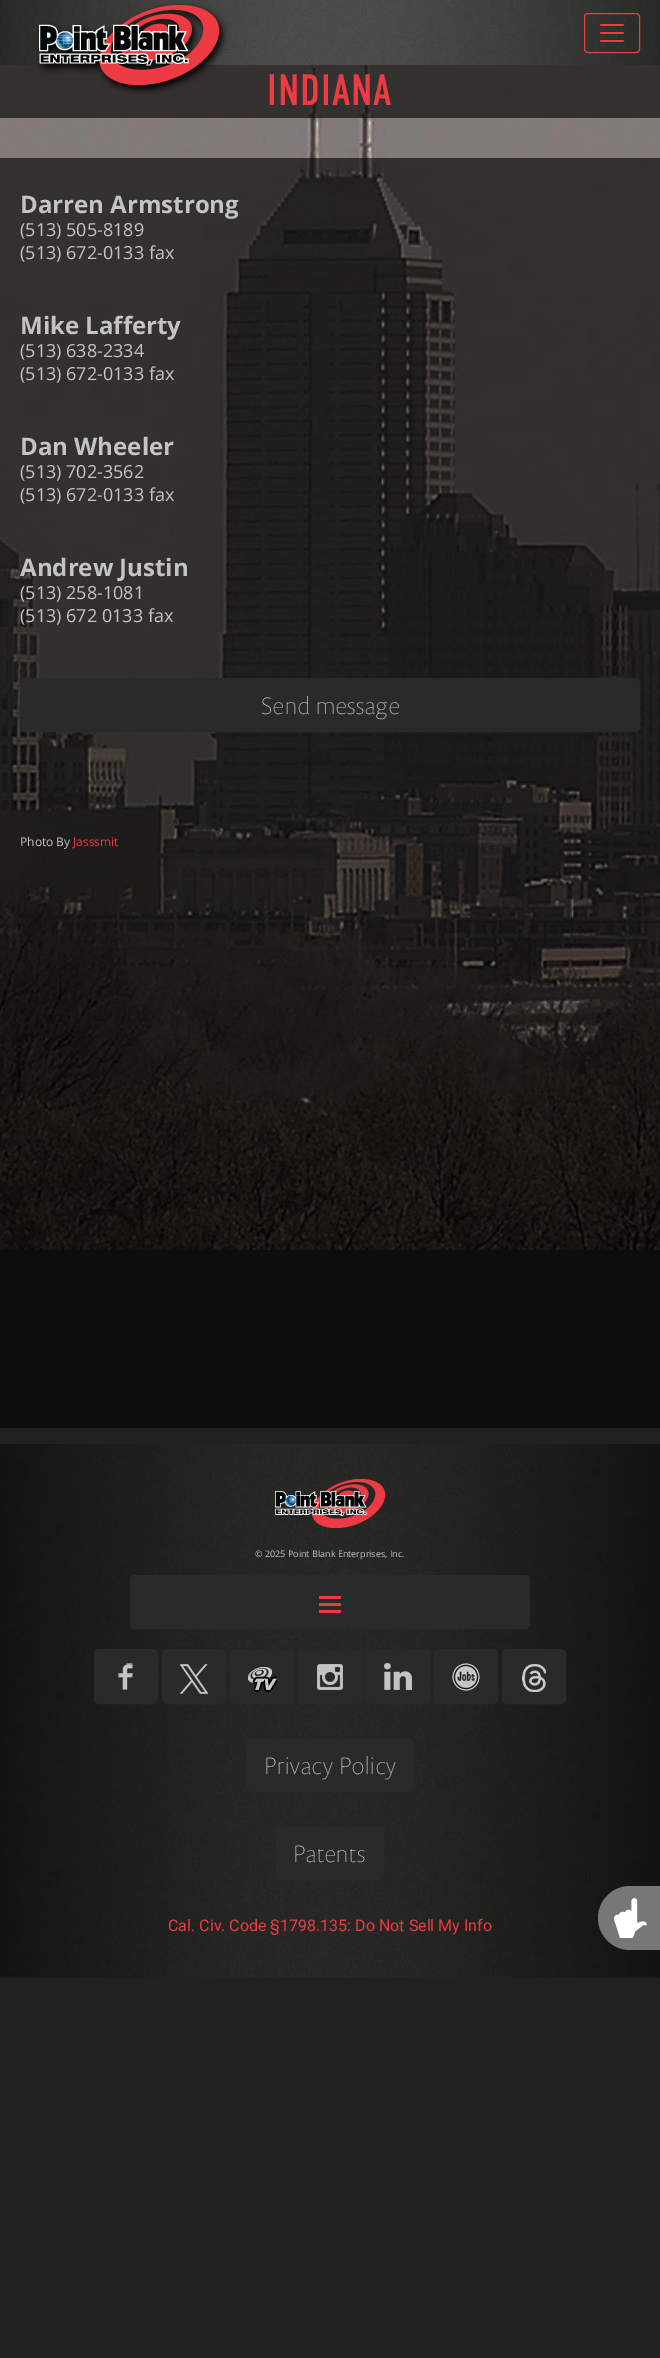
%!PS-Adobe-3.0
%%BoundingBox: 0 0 660 2358
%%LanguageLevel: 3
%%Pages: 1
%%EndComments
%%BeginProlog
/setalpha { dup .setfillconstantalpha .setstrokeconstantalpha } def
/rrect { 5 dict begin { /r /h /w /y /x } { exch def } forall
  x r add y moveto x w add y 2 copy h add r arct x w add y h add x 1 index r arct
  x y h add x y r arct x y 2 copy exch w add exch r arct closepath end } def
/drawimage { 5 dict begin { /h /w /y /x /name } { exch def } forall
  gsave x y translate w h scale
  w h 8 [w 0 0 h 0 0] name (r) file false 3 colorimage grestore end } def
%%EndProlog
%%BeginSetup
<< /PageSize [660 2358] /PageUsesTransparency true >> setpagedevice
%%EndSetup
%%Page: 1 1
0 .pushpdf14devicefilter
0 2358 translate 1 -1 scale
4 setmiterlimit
0.129 setgray
0 0 660 2358 rectfill
(images/1.raw) 0 65 660 1185 drawimage
(images/2.raw) 0 0 660 65 drawimage
0.6 setalpha
0 setgray
0 65 660 53 rectfill
1 setalpha
(images/3.raw) 37 3 191 91 drawimage
0.933 0.227 0.263 setrgbcolor
584.5 13.5 55 39 3.5 rrect stroke
(images/4.raw) 600 24 24 18 drawimage
0.6 setalpha
0 setgray
0 158 660 1270 rectfill
1 setalpha
0.169 0.165 0.165 setrgbcolor
20.5 678.5 619 53 4.5 rrect gsave fill grestore
stroke
(images/5.raw) 0 1444 660 534 drawimage
(images/6.raw) 275 1479 110 49 drawimage
130.5 1575.5 399 53 4.5 rrect gsave fill grestore
stroke
(images/7.raw) 319 1596 22 17 drawimage
94.5 1649.5 63 54 4.5 rrect gsave fill grestore
stroke
(images/8.raw) 118 1663 15 27 drawimage
162.5 1649.5 63 54 4.5 rrect gsave fill grestore
stroke
(images/9.raw) 180 1664 28 30 drawimage
230 1649 64 55 5 rrect fill
(images/10.raw) 248 1667 29 25 drawimage
298 1649 64 55 5 rrect fill
(images/11.raw) 317 1664 26 26 drawimage
366 1649 64 55 5 rrect fill
(images/12.raw) 384 1663 28 27 drawimage
434.5 1649.5 63 54 4.5 rrect gsave fill grestore
stroke
(images/13.raw) 452 1663 28 28 drawimage
502.5 1649.5 63 54 4.5 rrect gsave fill grestore
stroke
(images/14.raw) 522 1664 24 28 drawimage
247 1738 166 54 5 rrect fill
276 1826 108 54 5 rrect fill
0.467 setgray
newpath 630 1886 moveto 660 1886 lineto 660 1950 lineto 630 1950 lineto 612.5 1950 598 1935.5 598 1918 curveto 598 1900.5 612.5 1886 630 1886 curveto closepath fill
(images/15.raw) 613 1898 34 40 drawimage
/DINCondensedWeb-Regular [44 0 0 -44 0 0] selectfont
0.933 0.227 0.263 setrgbcolor
267 105 moveto 1 0 (INDIANA) ashow
/OpenSans-Bold [24 0 0 -24 0 0] selectfont
0.769 setgray
20 213 moveto (Darren Armstrong) show
/OpenSans-Regular [18 0 0 -18 0 0] selectfont
20 236 moveto (\(513\) 505-8189) show
20 259 moveto (\(513\) 672-0133 fax) show
/OpenSans-Bold [24 0 0 -24 0 0] selectfont
20 334 moveto (Mike Lafferty) show
/OpenSans-Regular [18 0 0 -18 0 0] selectfont
20 357 moveto (\(513\) 638-2334) show
20 380 moveto (\(513\) 672-0133 fax) show
/OpenSans-Bold [24 0 0 -24 0 0] selectfont
20 455 moveto (Dan Wheeler) show
/OpenSans-Regular [18 0 0 -18 0 0] selectfont
20 478 moveto (\(513\) 702-3562) show
20 501 moveto (\(513\) 672-0133 fax) show
/OpenSans-Bold [24 0 0 -24 0 0] selectfont
20 576 moveto (Andrew Justin) show
/OpenSans-Regular [18 0 0 -18 0 0] selectfont
20 599 moveto (\(513\) 258-1081) show
20 622 moveto (\(513\) 672 0133 fax) show
/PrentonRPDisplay-Thin [24 0 0 -24 0 0] selectfont
261 714 moveto 1 0 (Send message) ashow
/OpenSans-Regular [12 0 0 -12 0 0] selectfont
20 846 moveto (Photo By) show
0.933 0.227 0.263 setrgbcolor
73 846 moveto (Jasssmit) show
/OpenSans-Regular [9 0 0 -9 0 0] selectfont
0.769 setgray
255 1557 moveto (© 2025 Point Blank Enterprises, Inc.) show
/PrentonRPDisplay-Thin [24 0 0 -24 0 0] selectfont
264 1774 moveto 1 0 (Privacy Policy) ashow
293 1862 moveto 1 0 (Patents) ashow
/Roboto-Regular [16 0 0 -16 0 0] selectfont
0.933 0.227 0.263 setrgbcolor
168 1931 moveto (Cal. Civ. Code §1798.135: Do Not Sell My Info) show
.poppdf14devicefilter showpage
%%EOF
